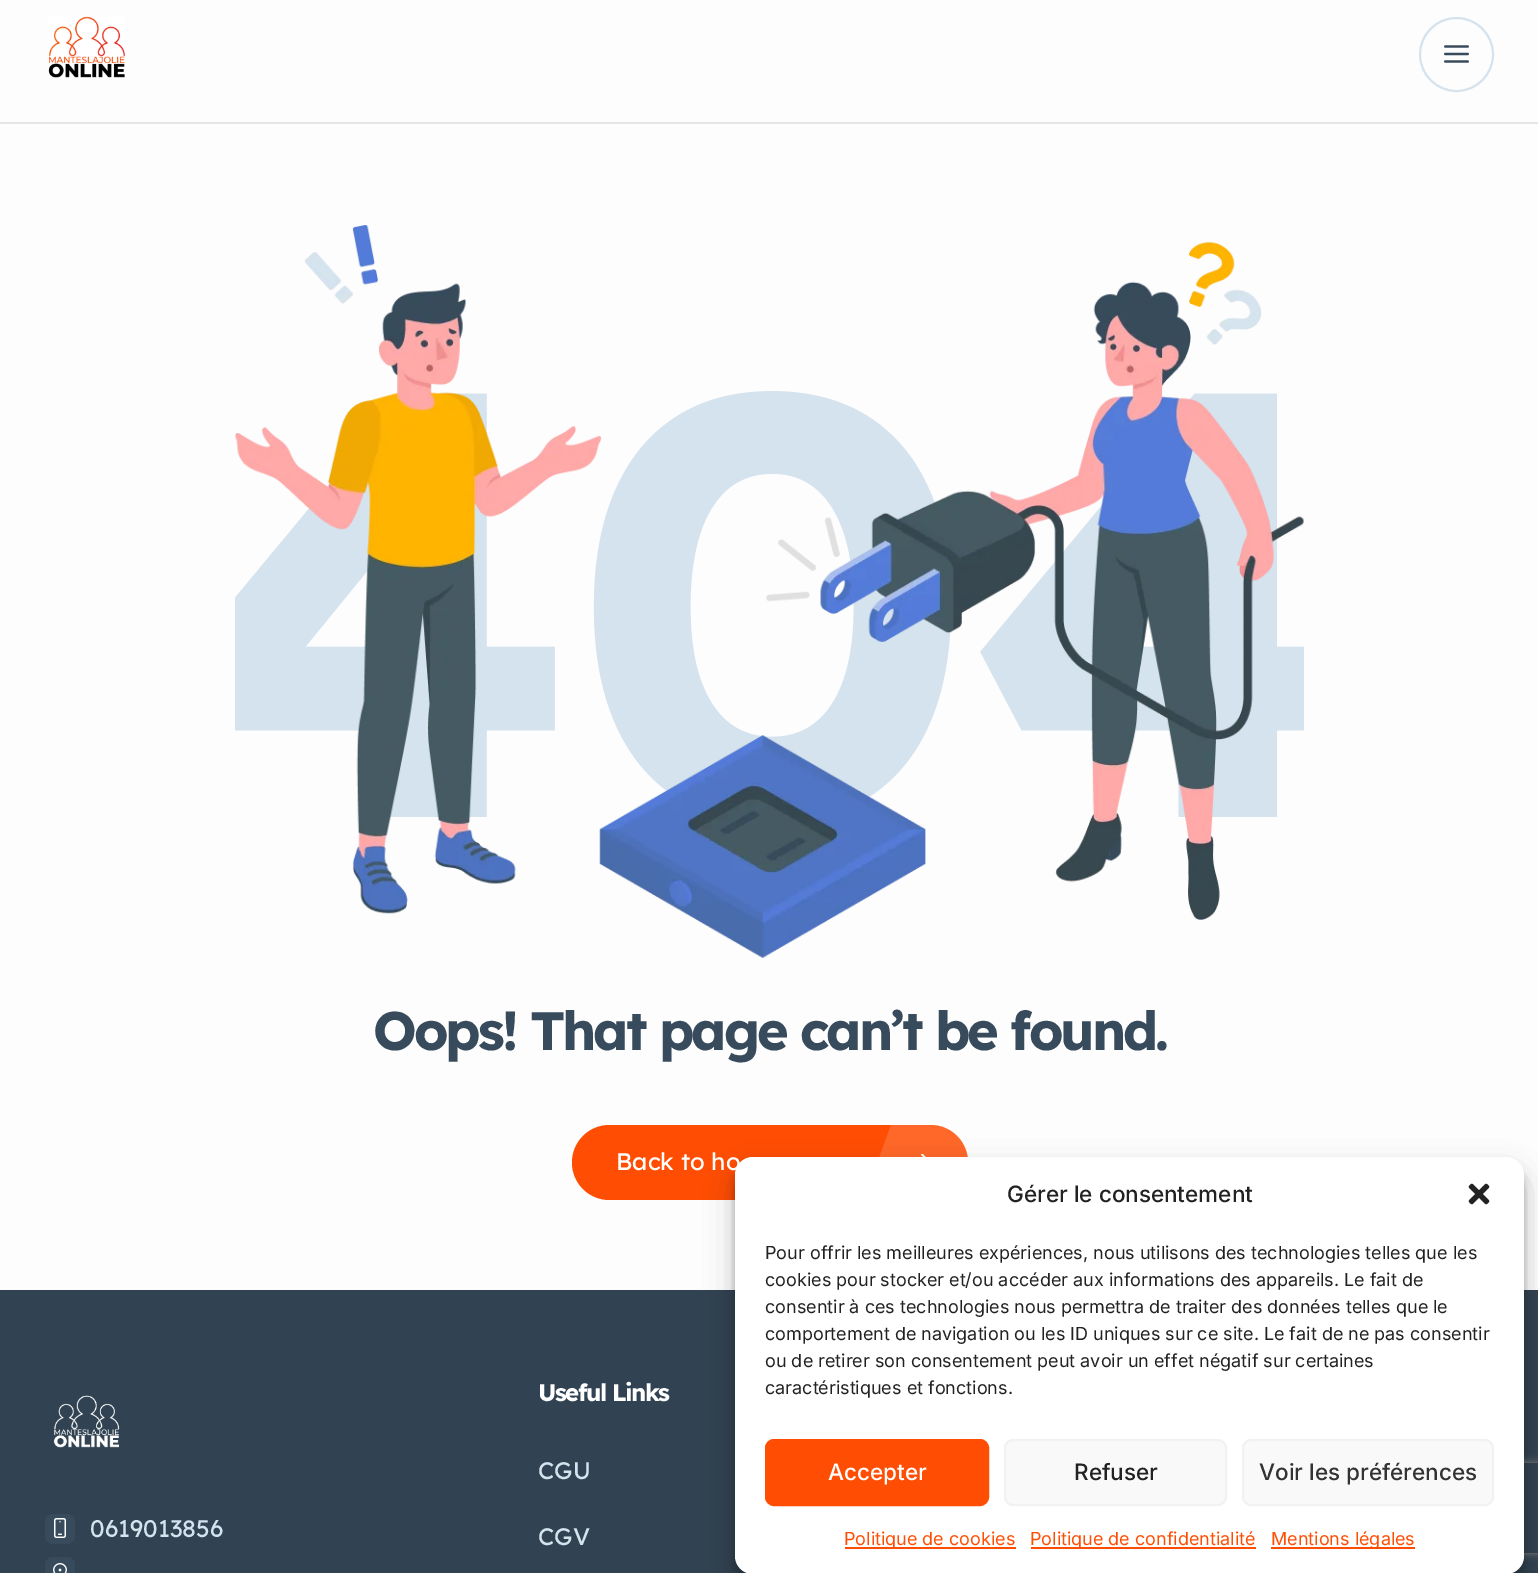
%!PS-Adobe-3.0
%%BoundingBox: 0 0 1538 1573
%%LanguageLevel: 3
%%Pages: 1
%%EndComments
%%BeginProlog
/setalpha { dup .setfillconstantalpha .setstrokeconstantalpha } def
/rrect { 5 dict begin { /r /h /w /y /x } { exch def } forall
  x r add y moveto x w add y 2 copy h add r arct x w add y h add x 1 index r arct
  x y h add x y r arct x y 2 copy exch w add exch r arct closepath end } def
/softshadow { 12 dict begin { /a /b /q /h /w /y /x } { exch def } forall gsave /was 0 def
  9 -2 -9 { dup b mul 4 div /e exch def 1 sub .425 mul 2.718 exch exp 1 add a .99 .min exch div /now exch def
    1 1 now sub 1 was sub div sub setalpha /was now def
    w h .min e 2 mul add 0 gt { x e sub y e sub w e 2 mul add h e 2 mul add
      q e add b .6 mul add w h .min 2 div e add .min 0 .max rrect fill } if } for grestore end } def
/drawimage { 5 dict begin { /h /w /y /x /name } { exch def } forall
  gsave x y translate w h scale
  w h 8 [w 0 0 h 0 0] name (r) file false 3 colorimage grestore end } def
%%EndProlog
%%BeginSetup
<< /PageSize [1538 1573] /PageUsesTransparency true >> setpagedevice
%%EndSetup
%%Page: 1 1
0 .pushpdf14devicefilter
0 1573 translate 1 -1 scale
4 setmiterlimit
0.992 0.992 0.996 setrgbcolor
0 0 1538 1573 rectfill
(images/1.raw) 48 16 77 62 drawimage
0.835 0.89 0.933 setrgbcolor
2 setlinewidth
newpath 1456.5 54.5 36.5 0 360 arc closepath stroke
(images/2.raw) 1444 45 25 18 drawimage
0.898 setgray
0 122 1538 2 rectfill
(images/3.raw) 235 225 1069 734 drawimage
1 0.306 0.012 setrgbcolor
572 1125 396 75 37.5 rrect fill
(images/4.raw) 921 1154 5 3 drawimage
0.15 setalpha
0.992 0.992 0.996 setrgbcolor
newpath 864 1200 moveto 891 1125 lineto 930 1125 lineto 951 1125 968 1142 968 1162 curveto 968 1183 951 1200 930 1200 curveto closepath fill
1 setalpha
0.192 0.263 0.322 setrgbcolor
0 1290 1538 283 rectfill
(images/5.raw) 53 1395 67 53 drawimage
0.216 0.294 0.361 setrgbcolor
45 1514 30 30 8 rrect fill
(images/6.raw) 54 1518 12 20 drawimage
45 1557 30 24 8 rrect fill
(images/7.raw) 53 1563 14 10 drawimage
0 setgray
735 1166 789 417 18 4.5 0.23 softshadow
735 1172 789 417 18 15 0.19 softshadow
gsave
newpath 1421 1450 moveto 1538 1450 lineto 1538 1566 lineto 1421 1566 lineto closepath 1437 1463 moveto 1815 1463 lineto 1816.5 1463 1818 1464.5 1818 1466 curveto 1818 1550 lineto 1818 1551.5 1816.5 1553 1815 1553 curveto 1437 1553 lineto 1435.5 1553 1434 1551.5 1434 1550 curveto 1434 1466 lineto 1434 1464.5 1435.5 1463 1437 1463 curveto closepath eoclip newpath
0.502 setgray
1434 1463 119 90 3 4 1 softshadow
grestore
1 setgray
735 1157 789 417 18 rrect fill
(images/8.raw) 1468 1183 22 22 drawimage
1 0.306 0.012 setrgbcolor
766 1440 222 65 8 rrect gsave fill grestore
stroke
0.976 setgray
1005 1440 221 65 8 rrect gsave fill grestore
0.949 setgray
stroke
0.976 setgray
1243 1440 250 65 8 rrect gsave fill grestore
0.949 setgray
stroke
1 0.306 0.012 setrgbcolor
845 1547 171 2 rectfill
1031 1547 225 2 rectfill
1271 1547 144 2 rectfill
/LexendDeca-Bold [54 0 0 -54 0 0] selectfont
0.216 0.294 0.361 setrgbcolor
373 1050 moveto -3 0 (Oops! That page can’t be found.) ashow
/LexendDeca-Regular [24 0 0 -24 0 0] selectfont
1 setgray
616 1170 moveto (Back to ho) show
0.835 0.89 0.933 setrgbcolor
90 1537 moveto (0619013856) show
/LexendDeca-Bold [24 0 0 -24 0 0] selectfont
1 setgray
538 1401 moveto -1.5 0 (Useful Links) ashow
/LexendDeca-Regular [24 0 0 -24 0 0] selectfont
0.835 0.89 0.933 setrgbcolor
538 1479 moveto (CGU) show
538 1545 moveto (CGV) show
/Inter-Medium [22.5 0 0 -22.5 0 0] selectfont
0.133 setgray
1007 1202 moveto (Gérer le consentement) show
/Inter-Regular [18 0 0 -18 0 0] selectfont
765 1259 moveto (Pour offrir les meilleures expériences, nous utilisons des technologies telles que les) show
765 1286 moveto (cookies pour stocker et/ou accéder aux informations des appareils. Le fait de) show
765 1313 moveto (consentir à ces technologies nous permettra de traiter des données telles que le) show
765 1340 moveto (comportement de navigation ou les ID uniques sur ce site. Le fait de ne pas consentir) show
765 1367 moveto (ou de retirer son consentement peut avoir un effet négatif sur certaines) show
765 1394 moveto (caractéristiques et fonctions.) show
/Inter-Medium [22.5 0 0 -22.5 0 0] selectfont
1 setgray
828 1480 moveto (Accepter) show
0.133 setgray
1074 1480 moveto (Refuser) show
0.2 setgray
1259 1480 moveto (Voir les préférences) show
/Inter-Regular [18 0 0 -18 0 0] selectfont
1 0.306 0.012 setrgbcolor
844 1545 moveto (Politique de cookies) show
1030 1545 moveto (Politique de confidentialité) show
1271 1545 moveto (Mentions légales) show
.poppdf14devicefilter showpage
%%EOF
